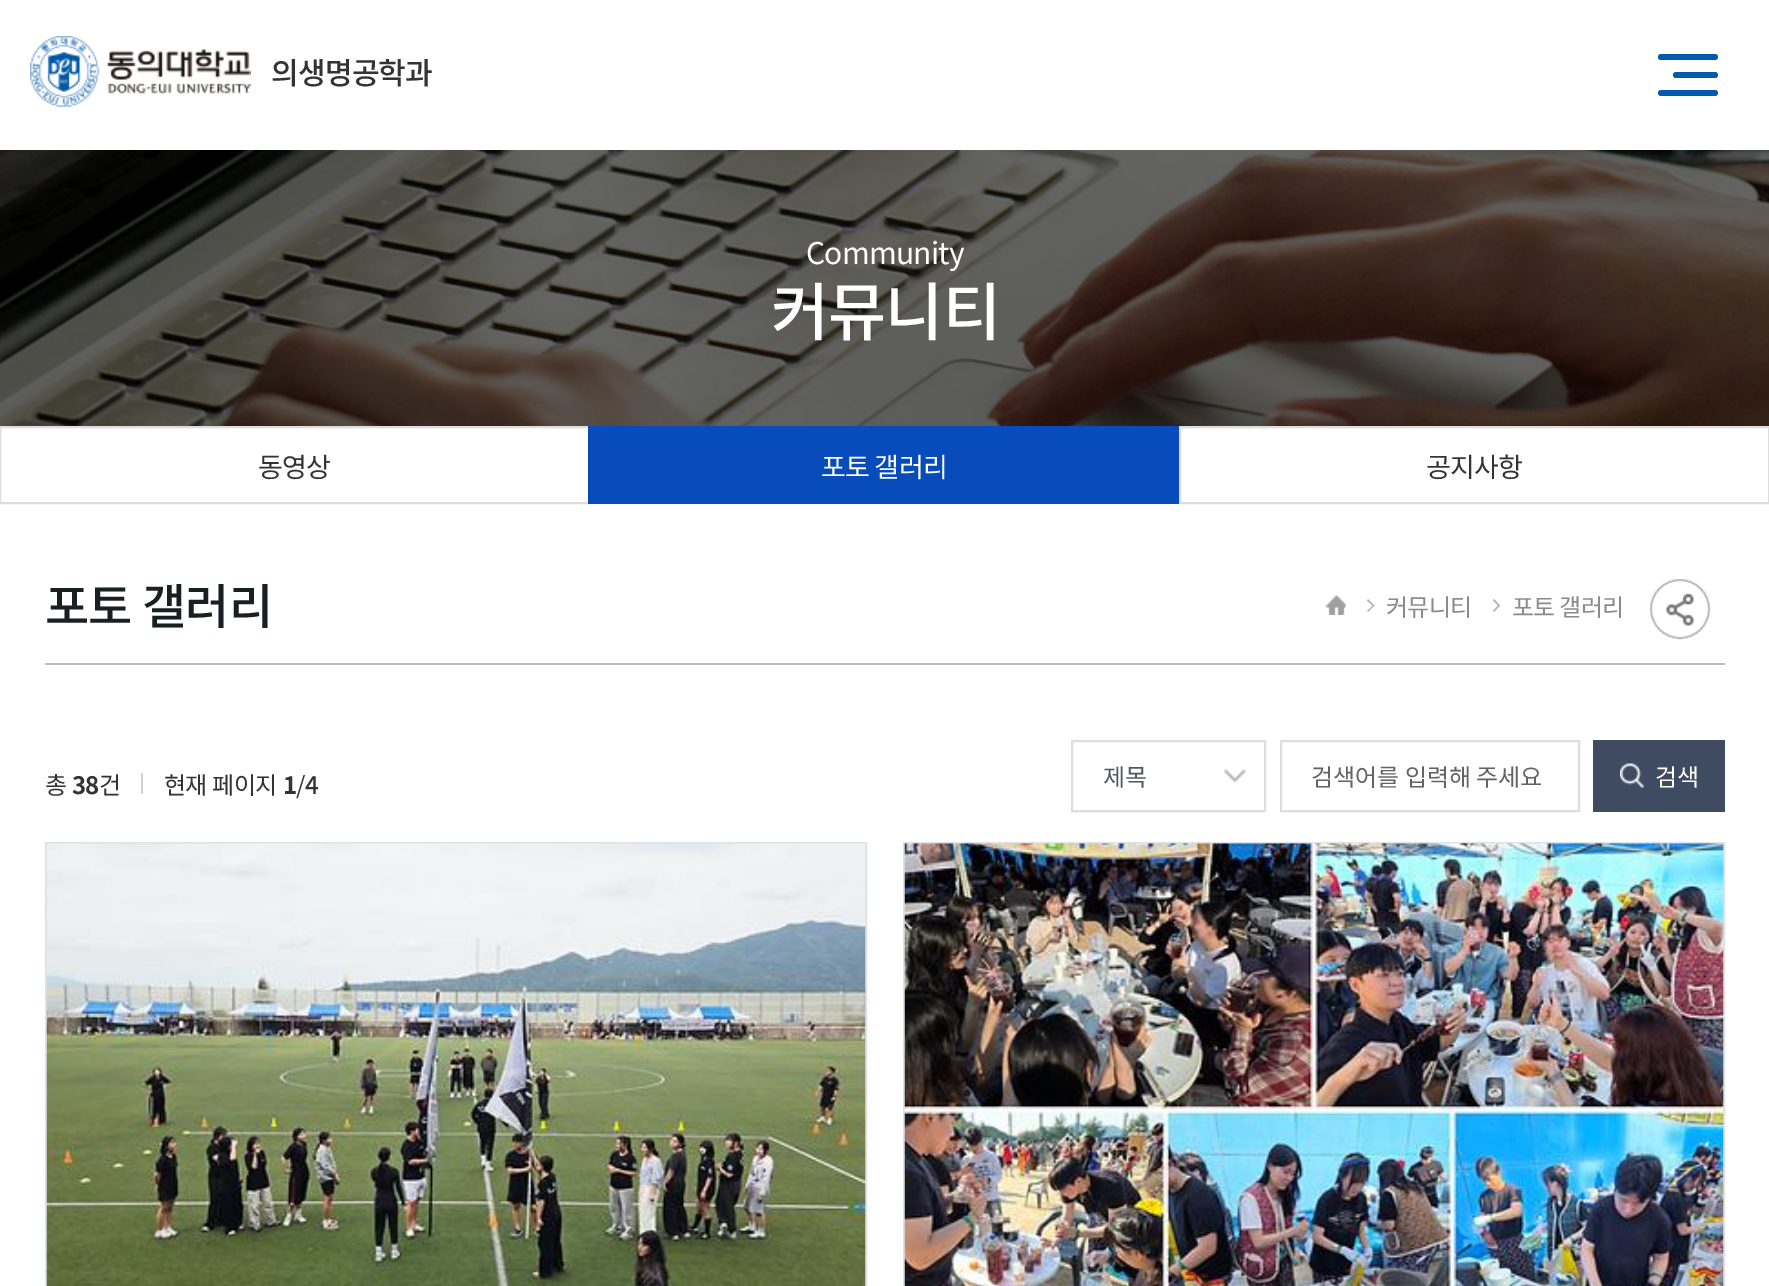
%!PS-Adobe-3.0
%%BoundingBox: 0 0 1769 1286
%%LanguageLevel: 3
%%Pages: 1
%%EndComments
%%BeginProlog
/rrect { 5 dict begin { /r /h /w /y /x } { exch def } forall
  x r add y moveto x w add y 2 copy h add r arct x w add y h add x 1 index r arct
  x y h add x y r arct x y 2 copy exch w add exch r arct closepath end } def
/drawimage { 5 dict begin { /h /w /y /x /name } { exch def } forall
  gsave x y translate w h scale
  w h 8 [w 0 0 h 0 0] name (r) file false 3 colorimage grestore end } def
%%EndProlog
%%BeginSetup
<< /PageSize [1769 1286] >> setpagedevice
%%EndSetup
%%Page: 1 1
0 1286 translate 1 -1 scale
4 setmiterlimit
1 setgray
0 0 1769 1286 rectfill
(images/1.raw) 30 36 221 71 drawimage
0.008 0.357 0.675 setrgbcolor
1673 72 45 6 3 rrect fill
1658 54 60 6 3 rrect fill
1658 90 60 6 3 rrect fill
(images/2.raw) 0 150 1769 276 drawimage
0.867 setgray
2 setlinewidth
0 427 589 76 rectstroke
0.031 0.294 0.733 setrgbcolor
588 426 591 78 rectfill
0.867 setgray
1180 427 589 76 rectstroke
0.741 setgray
45 663 1680 2 rectfill
(images/3.raw) 1325 595 21 20 drawimage
0.682 0.714 0.729 setrgbcolor
newpath 1367 600.5 moveto 1368 599 lineto 1374.5 605.5 lineto 1373.5 606.5 lineto closepath fill
newpath 1367 611 moveto 1373.5 604.5 lineto 1374.5 605.5 lineto 1368 612 lineto closepath fill
newpath 1493 600.5 moveto 1494 599 lineto 1500 605.5 lineto 1499 606.5 lineto closepath fill
newpath 1493 611 moveto 1499 604.5 lineto 1500 605.5 lineto 1494 612 lineto closepath fill
(images/4.raw) 1666 594 28 32 drawimage
0.757 setgray
newpath 1680 609 29 0 360 arc closepath stroke
0.808 0.831 0.855 setrgbcolor
141 773 2 21 rectfill
(images/5.raw) 1224 769 23 14 drawimage
0.871 setgray
1072 741 193 70 rectstroke
1281 741 298 70 rectstroke
0.243 0.294 0.38 setrgbcolor
1593 740 132 72 rectfill
(images/6.raw) 1620 763 24 26 drawimage
0.871 0.886 0.894 setrgbcolor
46 843 820 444 rectstroke
(images/7.raw) 46 843 820 443 drawimage
904 843 820 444 rectstroke
(images/8.raw) 904 843 820 443 drawimage
/NotoSansKR-Medium [30 0 0 -30 0 0] selectfont
0.2 setgray
271 84 moveto -0.75 0 (의생명공학과) ashow
/NotoSansKR-Regular [30 0 0 -30 0 0] selectfont
1 setgray
806 264 moveto -0.75 0 (Community) ashow
/NotoSansKR-Medium [63 0 0 -63 0 0] selectfont
771 335 moveto -0.75 0 (커뮤니티) ashow
/NotoSansKR-Regular [27 0 0 -27 0 0] selectfont
0.2 setgray
258 477 moveto -0.75 0 (동영상) ashow
1 setgray
821 477 moveto -0.75 0 (포토 갤러리) ashow
0.2 setgray
1426 477 moveto -0.75 0 (공지사항) ashow
/NotoSansKR-Medium [48 0 0 -48 0 0] selectfont
0.094 0.125 0.141 setrgbcolor
45 624 moveto -0.75 0 (포토 갤러리) ashow
/NotoSansKR-Regular [24 0 0 -24 0 0] selectfont
0.545 setgray
1386 616 moveto -0.75 0 (커뮤니티) ashow
1512 616 moveto -0.75 0 (포토 갤러리) ashow
0.2 setgray
45 794 moveto -0.75 0 (총) ashow
/NotoSansKR-Bold [24 0 0 -24 0 0] selectfont
72 794 moveto -0.75 0 (38) ashow
/NotoSansKR-Regular [24 0 0 -24 0 0] selectfont
99 794 moveto -0.75 0 (건) ashow
164 794 moveto 1 0 32 -0.75 0 (현재 페이지) awidthshow
/NotoSansKR-Bold [24 0 0 -24 0 0] selectfont
283 794 moveto -0.75 0 (1) ashow
/NotoSansKR-Regular [24 0 0 -24 0 0] selectfont
296 794 moveto -0.75 0 (/) ashow
/NotoSansKR-Medium [24 0 0 -24 0 0] selectfont
305 794 moveto -0.75 0 (4) ashow
/NotoSansKR-Regular [24 0 0 -24 0 0] selectfont
0.314 0.345 0.361 setrgbcolor
1103 786 moveto (제목) show
0.388 setgray
1311 786 moveto (검색어를 입력해 주세요) show
1 setgray
1655 786 moveto (검색) show
showpage
%%EOF
